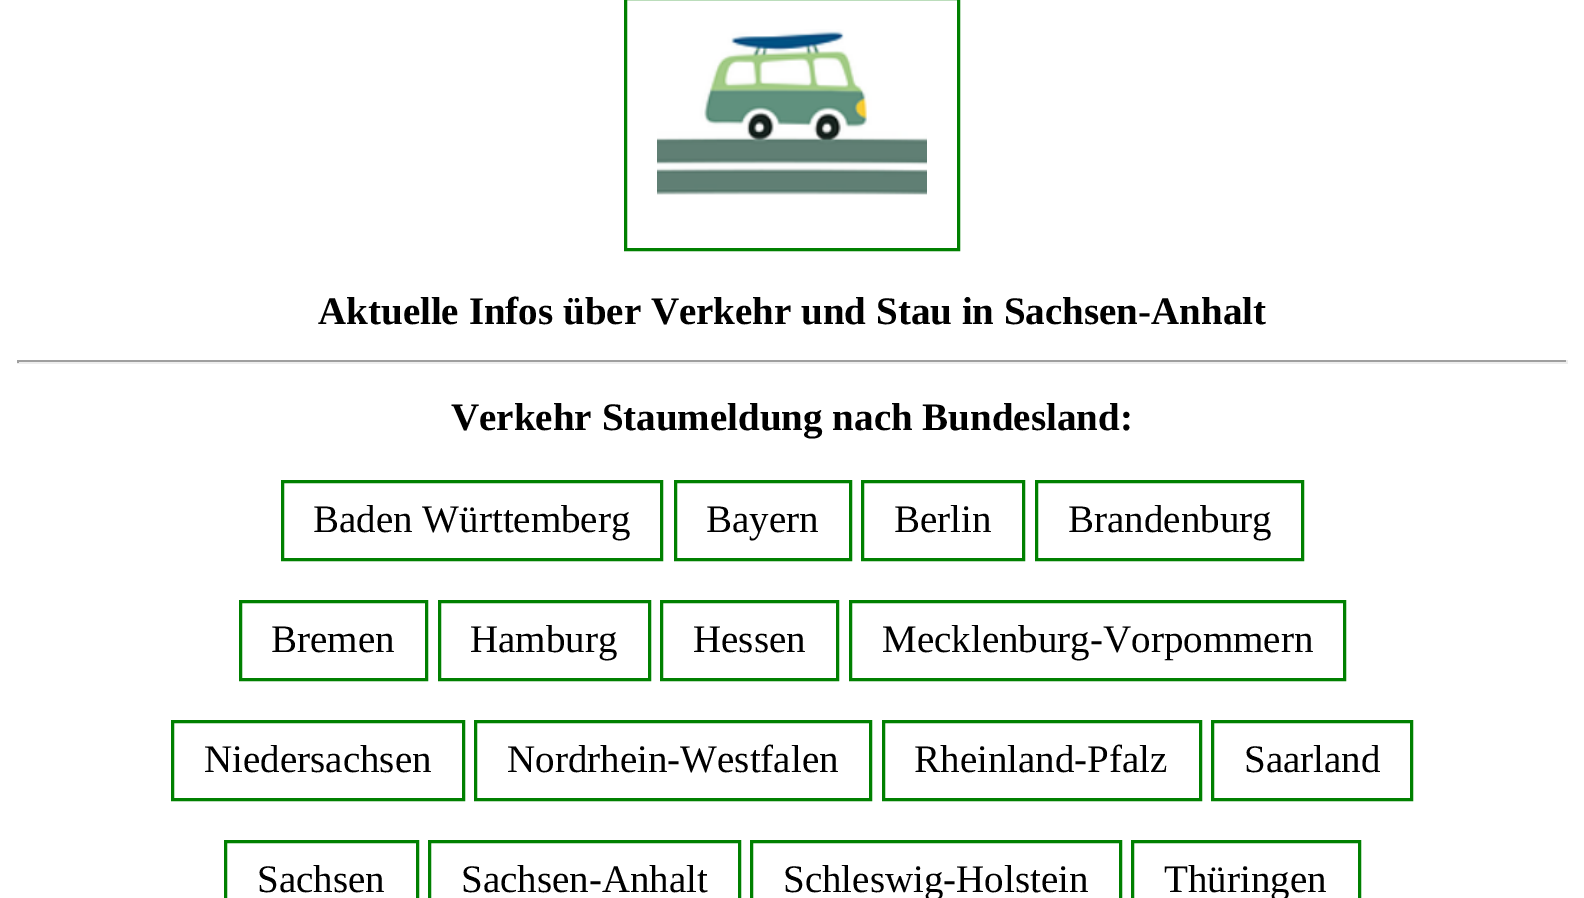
%!PS-Adobe-3.0
%%BoundingBox: 0 0 1584 898
%%LanguageLevel: 3
%%Pages: 1
%%EndComments
%%BeginProlog
/drawimage { 5 dict begin { /h /w /y /x /name } { exch def } forall
  gsave x y translate w h scale
  w h 8 [w 0 0 h 0 0] name (r) file false 3 colorimage grestore end } def
%%EndProlog
%%BeginSetup
<< /PageSize [1584 898] >> setpagedevice
%%EndSetup
%%Page: 1 1
0 898 translate 1 -1 scale
4 setmiterlimit
1 setgray
0 0 1584 898 rectfill
0 0.502 0 setrgbcolor
3 setlinewidth
625.5 -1.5 333 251 rectstroke
(images/1.raw) 657 29 270 166 drawimage
0.624 setgray
17 360 1551 2 rectfill
0.933 setgray
1566 360 2 3 rectfill
17 362 1551 2 rectfill
0.624 setgray
17 360 2 3 rectfill
0 0.502 0 setrgbcolor
282.5 481.5 379 78 rectstroke
675.5 481.5 175 78 rectstroke
862.5 481.5 161 78 rectstroke
1036.5 481.5 266 78 rectstroke
240.5 601.5 186 78 rectstroke
439.5 601.5 210 78 rectstroke
661.5 601.5 176 78 rectstroke
850.5 601.5 494 78 rectstroke
172.5 721.5 291 78 rectstroke
475.5 721.5 395 78 rectstroke
883.5 721.5 317 78 rectstroke
1212.5 721.5 199 78 rectstroke
225.5 841.5 192 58 rectstroke
429.5 841.5 310 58 rectstroke
751.5 841.5 369 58 rectstroke
1132.5 841.5 227 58 rectstroke
/LiberationSerif-Bold [39 0 0 -39 0 0] selectfont
0 setgray
318 324 moveto (Aktuelle Infos über Verkehr und Stau in Sachsen-Anhalt) show
451 430 moveto (Verkehr Staumeldung nach Bundesland:) show
/LiberationSerif-Regular [39 0 0 -39 0 0] selectfont
313 532 moveto (Baden Württemberg) show
706 532 moveto (Bayern) show
894 532 moveto (Berlin) show
1068 532 moveto (Brandenburg) show
271 652 moveto (Bremen) show
470 652 moveto (Hamburg) show
693 652 moveto (Hessen) show
882 652 moveto (Mecklenburg-Vorpommern) show
204 772 moveto (Niedersachsen) show
507 772 moveto (Nordrhein-Westfalen) show
914 772 moveto (Rheinland-Pfalz) show
1244 772 moveto (Saarland) show
257 892 moveto (Sachsen) show
461 892 moveto (Sachsen-Anhalt) show
783 892 moveto (Schleswig-Holstein) show
1164 892 moveto (Thüringen) show
showpage
%%EOF
